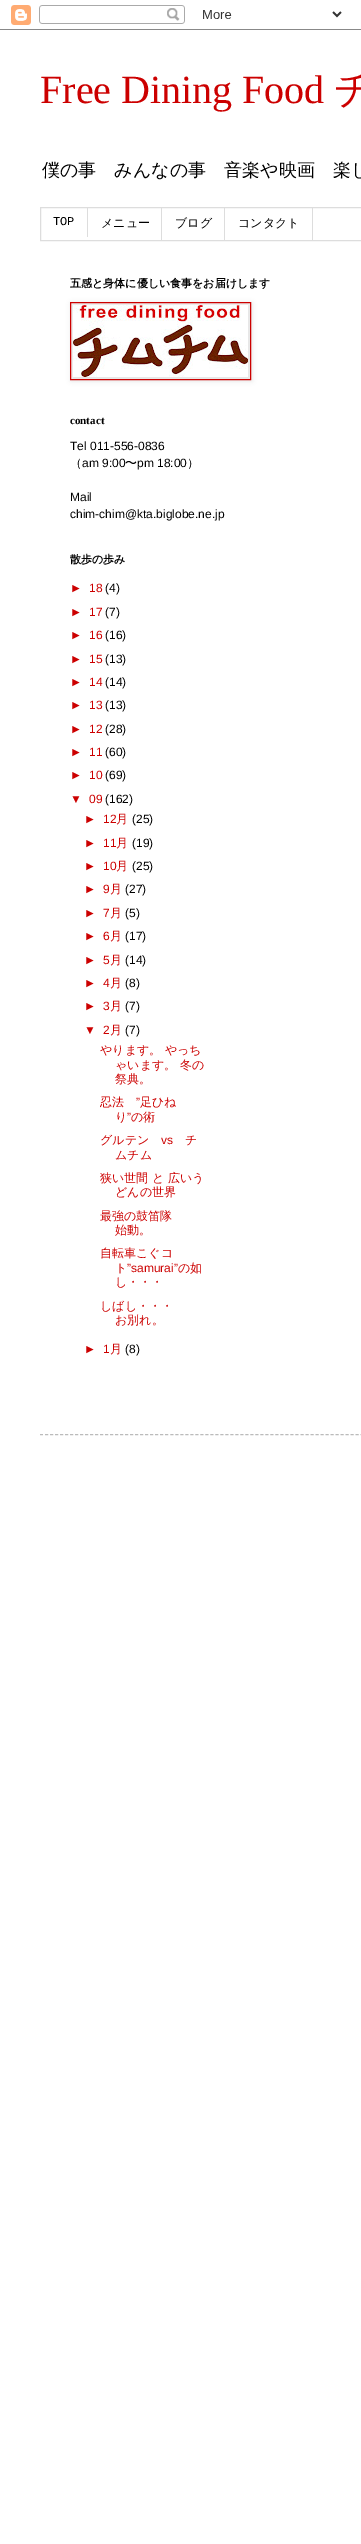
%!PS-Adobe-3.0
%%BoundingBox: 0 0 361 2544
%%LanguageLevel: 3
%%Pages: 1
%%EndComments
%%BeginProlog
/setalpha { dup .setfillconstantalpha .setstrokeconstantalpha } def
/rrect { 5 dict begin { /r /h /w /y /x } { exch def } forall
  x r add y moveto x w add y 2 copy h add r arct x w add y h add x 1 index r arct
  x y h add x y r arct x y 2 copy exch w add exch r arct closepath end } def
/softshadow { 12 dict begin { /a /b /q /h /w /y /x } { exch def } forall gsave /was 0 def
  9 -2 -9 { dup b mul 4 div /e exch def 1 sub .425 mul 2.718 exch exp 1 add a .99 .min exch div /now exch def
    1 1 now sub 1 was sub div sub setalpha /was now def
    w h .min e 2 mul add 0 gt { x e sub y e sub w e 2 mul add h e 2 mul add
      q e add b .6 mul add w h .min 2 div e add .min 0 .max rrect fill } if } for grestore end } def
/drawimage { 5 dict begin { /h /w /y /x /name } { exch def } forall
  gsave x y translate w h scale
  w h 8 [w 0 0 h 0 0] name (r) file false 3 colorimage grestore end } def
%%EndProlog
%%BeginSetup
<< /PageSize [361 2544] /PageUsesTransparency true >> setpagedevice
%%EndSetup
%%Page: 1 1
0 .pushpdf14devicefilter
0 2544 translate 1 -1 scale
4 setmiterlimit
1 setgray
0 0 361 2544 rectfill
(images/1.raw) 0 5 361 25 drawimage
0.867 setgray
40.5 207.5 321 33 rectstroke
87 208 1 29 rectfill
161 208 1 32 rectfill
224 208 1 32 rectfill
312 208 1 32 rectfill
0 setgray
71 303 181 78 0 2.5 0.1 softshadow
0.8 0 0 setrgbcolor
70.5 302.5 180 77 rectstroke
(images/2.raw) 73 305 175 72 drawimage
0.733 setgray
[3 2.01] 0 setdash
newpath 40 1434.5 moveto 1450 1434.5 lineto stroke
/LiberationSerif-Regular [40 0 0 -40 0 0] selectfont
0.8 0 0 setrgbcolor
40 103 moveto (Free Dining Food) show
/WenQuanYiZenHei-Medium [40 0 0 -40 0 0] selectfont
334 103 moveto (チ) show
/WenQuanYiZenHei-Medium [18 0 0 -18 0 0] selectfont
0 setgray
42 176 moveto (僕の事　みんなの事　音楽や映画　楽し) show
/LiberationMono-Regular [12 0 0 -12 0 0] selectfont
53 225 moveto (TOP) show
/WenQuanYiZenHei-Medium [12 0 0 -12 0 0] selectfont
101 227 moveto (メニュー) show
175 227 moveto (ブログ) show
238 227 moveto (コンタクト) show
/WenQuanYiZenHei-Bold [11 0 0 -11 0 0] selectfont
70 287 moveto (五感と身体に優しい食事をお届けします) show
/LiberationSerif-Bold [11 0 0 -11 0 0] selectfont
70 424 moveto (contact) show
/LiberationSans-Regular [12 0 0 -12 0 0] selectfont
70 450 moveto (Tel 011-556-0836) show
/WenQuanYiZenHei-Medium [12 0 0 -12 0 0] selectfont
70 467 moveto (（) show
/LiberationSans-Regular [12 0 0 -12 0 0] selectfont
82 467 moveto (am 9:00) show
/WenQuanYiZenHei-Medium [12 0 0 -12 0 0] selectfont
125 467 moveto (〜) show
/LiberationSans-Regular [12 0 0 -12 0 0] selectfont
137 467 moveto (pm 18:00) show
/WenQuanYiZenHei-Medium [12 0 0 -12 0 0] selectfont
187 467 moveto (）) show
/LiberationSans-Regular [12 0 0 -12 0 0] selectfont
70 501 moveto (Mail) show
70 518 moveto (chim-chim@kta.biglobe.ne.jp) show
/WenQuanYiZenHei-Bold [11 0 0 -11 0 0] selectfont
70 563 moveto (散歩の歩み) show
/LiberationSans-Regular [12 0 0 -12 0 0] selectfont
0.8 0 0 setrgbcolor
70 592 moveto (►) show
89 592 moveto (18) show
0 setgray
105 592 moveto (\(4\)) show
0.8 0 0 setrgbcolor
70 616 moveto (►) show
89 616 moveto (17) show
0 setgray
105 616 moveto (\(7\)) show
0.8 0 0 setrgbcolor
70 639 moveto (►) show
89 639 moveto (16) show
0 setgray
105 639 moveto (\(16\)) show
0.8 0 0 setrgbcolor
70 663 moveto (►) show
89 663 moveto (15) show
0 setgray
105 663 moveto (\(13\)) show
0.8 0 0 setrgbcolor
70 686 moveto (►) show
89 686 moveto (14) show
0 setgray
105 686 moveto (\(14\)) show
0.8 0 0 setrgbcolor
70 709 moveto (►) show
89 709 moveto (13) show
0 setgray
105 709 moveto (\(13\)) show
0.8 0 0 setrgbcolor
70 733 moveto (►) show
89 733 moveto (12) show
0 setgray
105 733 moveto (\(28\)) show
0.8 0 0 setrgbcolor
70 756 moveto (►) show
89 756 moveto (11) show
0 setgray
105 756 moveto (\(60\)) show
0.8 0 0 setrgbcolor
70 779 moveto (►) show
89 779 moveto (10) show
0 setgray
105 779 moveto (\(69\)) show
0.8 0 0 setrgbcolor
70 803 moveto (▼) show
89 803 moveto (09) show
0 setgray
105 803 moveto (\(162\)) show
0.8 0 0 setrgbcolor
84 823 moveto (►) show
103 823 moveto (12) show
/WenQuanYiZenHei-Medium [12 0 0 -12 0 0] selectfont
116 823 moveto (月) show
/LiberationSans-Regular [12 0 0 -12 0 0] selectfont
0 setgray
132 823 moveto (\(25\)) show
0.8 0 0 setrgbcolor
84 847 moveto (►) show
103 847 moveto (11) show
/WenQuanYiZenHei-Medium [12 0 0 -12 0 0] selectfont
116 847 moveto (月) show
/LiberationSans-Regular [12 0 0 -12 0 0] selectfont
0 setgray
132 847 moveto (\(19\)) show
0.8 0 0 setrgbcolor
84 870 moveto (►) show
103 870 moveto (10) show
/WenQuanYiZenHei-Medium [12 0 0 -12 0 0] selectfont
116 870 moveto (月) show
/LiberationSans-Regular [12 0 0 -12 0 0] selectfont
0 setgray
132 870 moveto (\(25\)) show
0.8 0 0 setrgbcolor
84 893 moveto (►) show
103 893 moveto (9) show
/WenQuanYiZenHei-Medium [12 0 0 -12 0 0] selectfont
110 893 moveto (月) show
/LiberationSans-Regular [12 0 0 -12 0 0] selectfont
0 setgray
125 893 moveto (\(27\)) show
0.8 0 0 setrgbcolor
84 917 moveto (►) show
103 917 moveto (7) show
/WenQuanYiZenHei-Medium [12 0 0 -12 0 0] selectfont
110 917 moveto (月) show
/LiberationSans-Regular [12 0 0 -12 0 0] selectfont
0 setgray
125 917 moveto (\(5\)) show
0.8 0 0 setrgbcolor
84 940 moveto (►) show
103 940 moveto (6) show
/WenQuanYiZenHei-Medium [12 0 0 -12 0 0] selectfont
110 940 moveto (月) show
/LiberationSans-Regular [12 0 0 -12 0 0] selectfont
0 setgray
125 940 moveto (\(17\)) show
0.8 0 0 setrgbcolor
84 964 moveto (►) show
103 964 moveto (5) show
/WenQuanYiZenHei-Medium [12 0 0 -12 0 0] selectfont
110 964 moveto (月) show
/LiberationSans-Regular [12 0 0 -12 0 0] selectfont
0 setgray
125 964 moveto (\(14\)) show
0.8 0 0 setrgbcolor
84 987 moveto (►) show
103 987 moveto (4) show
/WenQuanYiZenHei-Medium [12 0 0 -12 0 0] selectfont
110 987 moveto (月) show
/LiberationSans-Regular [12 0 0 -12 0 0] selectfont
0 setgray
125 987 moveto (\(8\)) show
0.8 0 0 setrgbcolor
84 1010 moveto (►) show
103 1010 moveto (3) show
/WenQuanYiZenHei-Medium [12 0 0 -12 0 0] selectfont
110 1010 moveto (月) show
/LiberationSans-Regular [12 0 0 -12 0 0] selectfont
0 setgray
125 1010 moveto (\(7\)) show
0.8 0 0 setrgbcolor
84 1034 moveto (▼) show
103 1034 moveto (2) show
/WenQuanYiZenHei-Medium [12 0 0 -12 0 0] selectfont
110 1034 moveto (月) show
/LiberationSans-Regular [12 0 0 -12 0 0] selectfont
0 setgray
125 1034 moveto (\(7\)) show
/WenQuanYiZenHei-Medium [12 0 0 -12 0 0] selectfont
0.8 0 0 setrgbcolor
100 1054 moveto (やります。 やっち) show
115 1069 moveto (ゃいます。 冬の) show
115 1083 moveto (祭典。) show
100 1106 moveto (忍法) show
/LiberationSans-Regular [12 0 0 -12 0 0] selectfont
136 1106 moveto (”) show
/WenQuanYiZenHei-Medium [12 0 0 -12 0 0] selectfont
140 1106 moveto (足ひね) show
115 1121 moveto (り) show
/LiberationSans-Regular [12 0 0 -12 0 0] selectfont
127 1121 moveto (”) show
/WenQuanYiZenHei-Medium [12 0 0 -12 0 0] selectfont
131 1121 moveto (の術) show
100 1144 moveto (グルテン) show
/LiberationSans-Regular [12 0 0 -12 0 0] selectfont
161 1144 moveto (vs) show
/WenQuanYiZenHei-Medium [12 0 0 -12 0 0] selectfont
185 1144 moveto (チ) show
115 1159 moveto (ムチム) show
100 1182 moveto (狭い世間 と 広いう) show
115 1196 moveto (どんの世界) show
100 1220 moveto (最強の鼓笛隊) show
115 1234 moveto (始動。) show
100 1257 moveto (自転車こぐコ) show
115 1272 moveto (ト) show
/LiberationSans-Regular [12 0 0 -12 0 0] selectfont
127 1272 moveto (”samurai”) show
/WenQuanYiZenHei-Medium [12 0 0 -12 0 0] selectfont
178 1272 moveto (の如) show
115 1286 moveto (し・・・) show
100 1310 moveto (しばし・・・) show
115 1324 moveto (お別れ。) show
/LiberationSans-Regular [12 0 0 -12 0 0] selectfont
84 1353 moveto (►) show
103 1353 moveto (1) show
/WenQuanYiZenHei-Medium [12 0 0 -12 0 0] selectfont
110 1353 moveto (月) show
/LiberationSans-Regular [12 0 0 -12 0 0] selectfont
0 setgray
125 1353 moveto (\(8\)) show
.poppdf14devicefilter showpage
%%EOF
